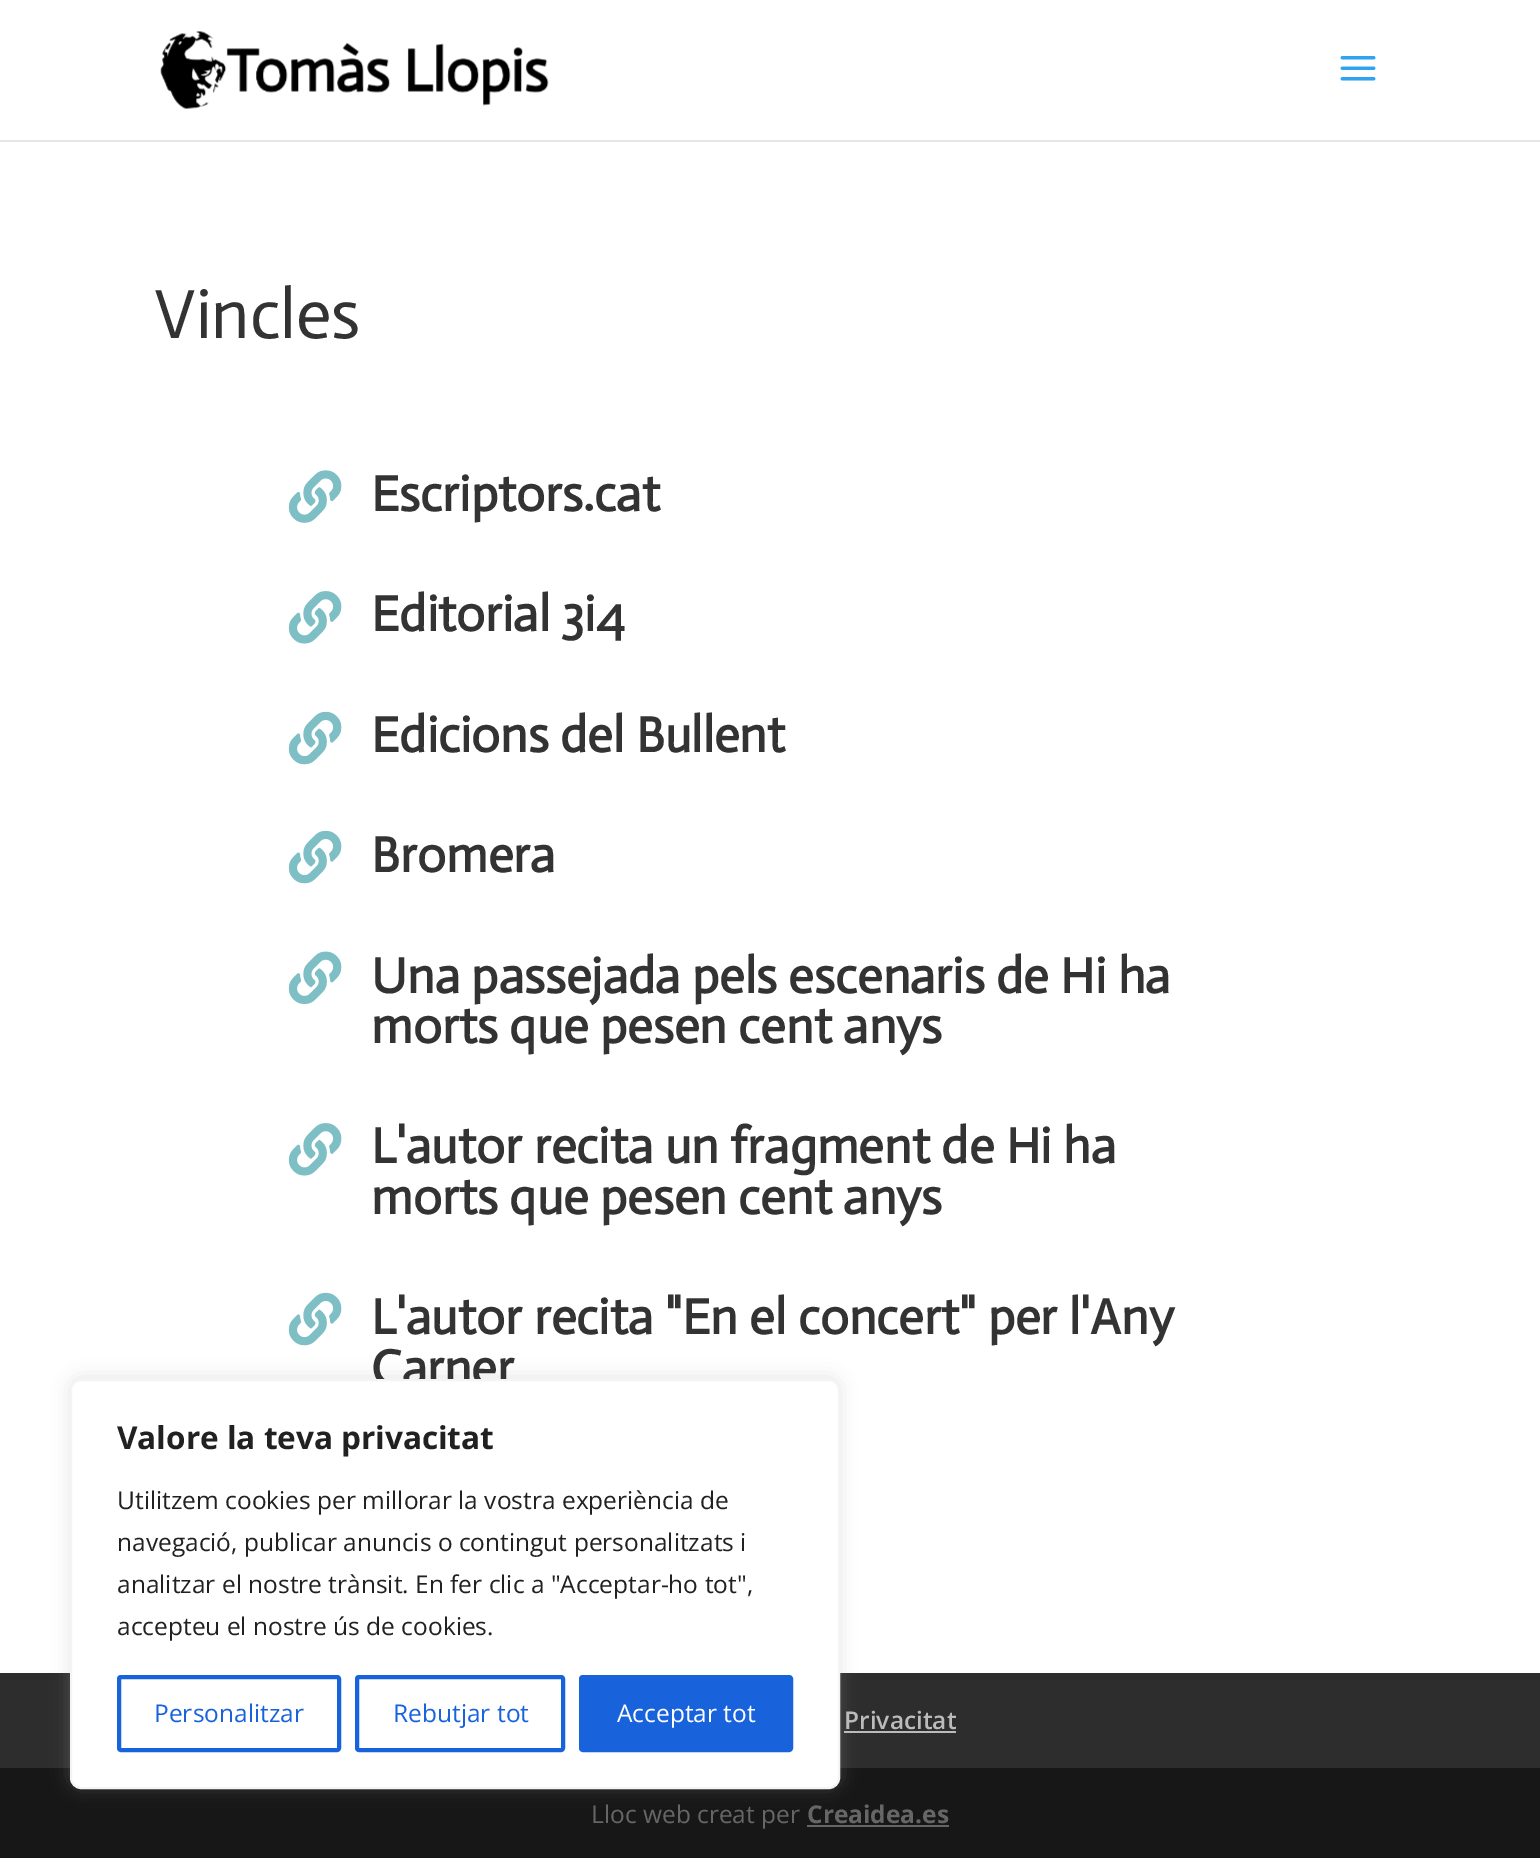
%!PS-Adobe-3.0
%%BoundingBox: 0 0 1540 1858
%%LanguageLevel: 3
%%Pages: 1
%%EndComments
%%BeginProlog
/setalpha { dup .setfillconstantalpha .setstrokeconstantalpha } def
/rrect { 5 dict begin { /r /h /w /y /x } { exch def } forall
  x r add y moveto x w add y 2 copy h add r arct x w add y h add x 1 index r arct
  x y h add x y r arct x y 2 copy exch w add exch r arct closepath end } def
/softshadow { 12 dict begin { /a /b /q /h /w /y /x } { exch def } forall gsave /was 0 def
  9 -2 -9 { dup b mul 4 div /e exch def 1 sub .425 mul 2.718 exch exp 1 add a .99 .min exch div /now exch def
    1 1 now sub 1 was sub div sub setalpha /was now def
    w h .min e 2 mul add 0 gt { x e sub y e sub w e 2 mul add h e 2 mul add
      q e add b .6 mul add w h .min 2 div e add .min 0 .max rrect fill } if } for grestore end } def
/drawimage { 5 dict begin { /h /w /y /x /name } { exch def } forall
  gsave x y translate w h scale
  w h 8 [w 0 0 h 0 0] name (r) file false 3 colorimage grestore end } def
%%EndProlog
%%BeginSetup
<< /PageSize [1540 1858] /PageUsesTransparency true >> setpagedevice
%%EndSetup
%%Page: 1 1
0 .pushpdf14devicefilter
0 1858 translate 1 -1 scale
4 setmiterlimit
1 setgray
0 0 1540 1858 rectfill
0.902 setgray
0 140 1540 2 rectfill
(images/1.raw) 160 31 389 78 drawimage
(images/2.raw) 1340 56 36 25 drawimage
(images/3.raw) 288 470 54 53 drawimage
(images/4.raw) 288 591 54 53 drawimage
(images/5.raw) 288 711 54 54 drawimage
(images/5.raw) 288 830 54 54 drawimage
(images/6.raw) 288 951 54 54 drawimage
(images/4.raw) 288 1123 54 53 drawimage
(images/5.raw) 288 1292 54 54 drawimage
0.176 setgray
0 1673 1540 95 rectfill
0.733 setgray
844 1731 112 2 rectfill
0.09 setgray
0 1768 1540 90 rectfill
0.4 setgray
807 1825 142 2 rectfill
0.675 0.671 0.671 setrgbcolor
70 1377 770 410 11 9 0.3 softshadow
/Actor-Regular [70 0 0 -70 0 0] selectfont
0.2 setgray
154 338 moveto (Vincles) show
/Actor-Bold [50.4 0 0 -50.4 0 0] selectfont
371 511 moveto (Escriptors.cat) show
371 631 moveto (Editorial 3i4) show
371 752 moveto (Edicions del Bullent) show
371 872 moveto (Bromera) show
371 993 moveto (Una passejada pels escenaris de Hi ha) show
371 1043 moveto (morts que pesen cent anys) show
371 1163 moveto (L'autor recita un fragment de Hi ha) show
371 1214 moveto (morts que pesen cent anys) show
371 1334 moveto (L'autor recita "En el concert" per l'Any) show
371 1385 moveto (Carner) show
/OpenSans-SemiBold [24.5 0 0 -24.5 0 0] selectfont
0.733 setgray
844 1729 moveto (Privacitat) show
/OpenSans-Regular [24.5 0 0 -24.5 0 0] selectfont
0.4 setgray
591 1823 moveto (Lloc web creat per) show
/OpenSans-Bold [24.5 0 0 -24.5 0 0] selectfont
807 1823 moveto (Creaidea.es) show
1 setgray
71 1380 768 408 10 rrect gsave fill grestore
0.957 setgray
2 setlinewidth
stroke
/OpenSans-Bold [31.5 0 0 -31.5 0 0] selectfont
0.129 setgray
117 1449 moveto (Valore la teva privacitat) show
/OpenSans-Regular [24.5 0 0 -24.5 0 0] selectfont
117 1509 moveto (Utilitzem cookies per millorar la vostra experiència de) show
117 1551 moveto (navegació, publicar anuncis o contingut personalitzats i) show
117 1593 moveto (analitzar el nostre trànsit. En fer clic a "Acceptar-ho tot",) show
117 1635 moveto (accepteu el nostre ús de cookies.) show
0.094 0.388 0.863 setrgbcolor
4 setlinewidth
119 1677 220 73 2 rrect stroke
154 1722 moveto (Personalitzar) show
357 1677 206 73 2 rrect stroke
393 1722 moveto (Rebutjar tot) show
581 1677 210 73 2 rrect gsave fill grestore
stroke
1 setgray
617 1722 moveto (Acceptar tot) show
.poppdf14devicefilter showpage
%%EOF
